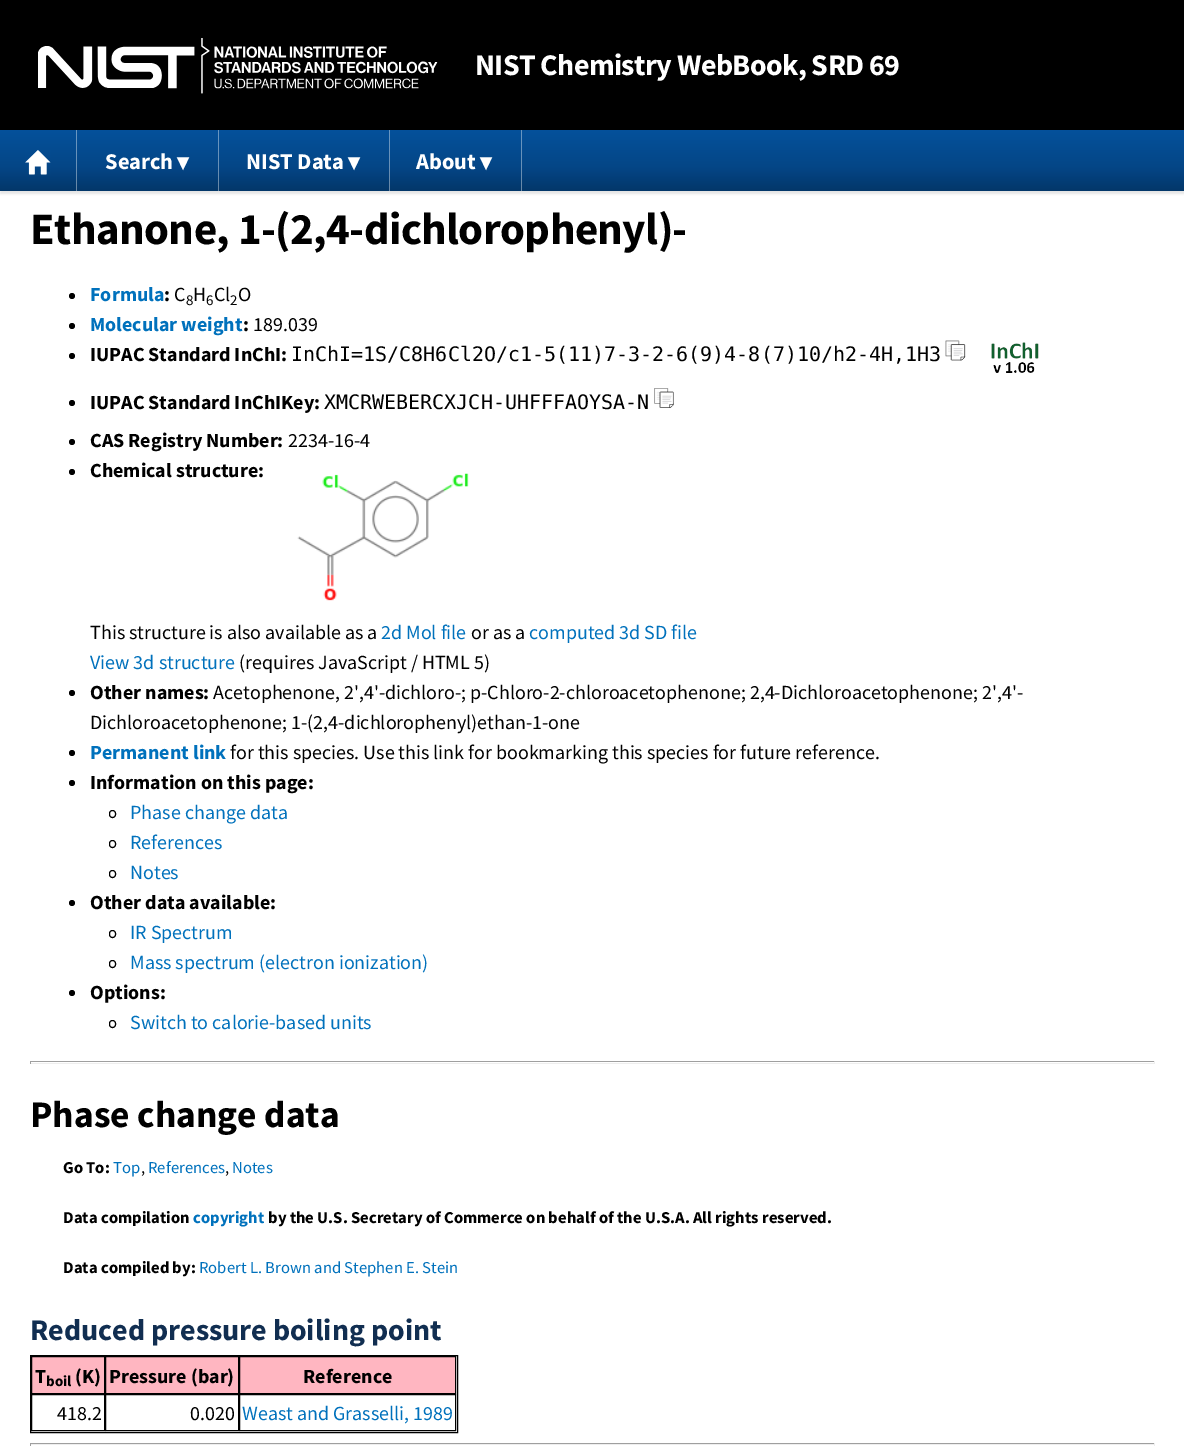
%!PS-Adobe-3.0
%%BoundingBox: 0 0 1184 1450
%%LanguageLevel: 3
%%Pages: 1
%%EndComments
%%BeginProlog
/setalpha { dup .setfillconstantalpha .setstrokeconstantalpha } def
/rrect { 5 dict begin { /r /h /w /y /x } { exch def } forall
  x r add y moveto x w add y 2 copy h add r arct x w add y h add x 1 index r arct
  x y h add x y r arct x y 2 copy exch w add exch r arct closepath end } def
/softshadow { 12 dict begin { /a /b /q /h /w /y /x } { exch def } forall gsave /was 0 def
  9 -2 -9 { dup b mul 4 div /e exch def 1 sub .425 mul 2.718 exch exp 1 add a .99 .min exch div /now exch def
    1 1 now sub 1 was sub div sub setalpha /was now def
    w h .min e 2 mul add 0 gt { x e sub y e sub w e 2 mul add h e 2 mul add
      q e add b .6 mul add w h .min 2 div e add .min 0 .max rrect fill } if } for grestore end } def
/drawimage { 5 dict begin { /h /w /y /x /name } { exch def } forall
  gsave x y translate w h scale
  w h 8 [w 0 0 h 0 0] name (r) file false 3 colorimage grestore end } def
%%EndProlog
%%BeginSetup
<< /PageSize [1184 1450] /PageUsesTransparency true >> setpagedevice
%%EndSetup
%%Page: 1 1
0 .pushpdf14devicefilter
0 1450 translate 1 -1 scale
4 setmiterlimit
1 setgray
0 0 1184 1450 rectfill
0 setgray
0 133 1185 61 0 1 0.1 softshadow
0 0 1184 130 rectfill
(images/1.raw) 38 38 400 56 drawimage
gsave newpath 0 130 moveto 1184 130 lineto 1184 191 lineto 0 191 lineto closepath clip newpath
<< /ShadingType 2 /ColorSpace /DeviceRGB /Coords [593 130 593 191] /Extend [true true] /Function << /FunctionType 3 /Domain [0 1] /Functions [<< /FunctionType 2 /Domain [0 1] /C0 [0.016 0.318 0.608] /C1 [0.016 0.275 0.529] /N 1 >> << /FunctionType 2 /Domain [0 1] /C0 [0.016 0.275 0.529] /C1 [0.012 0.216 0.412] /N 1 >>] /Bounds [0.6] /Encode [0 1 0 1] >> >> shfill grestore
gsave newpath 521 130 moveto 522 130 lineto 522 191 lineto 521 191 lineto closepath clip newpath
<< /ShadingType 2 /ColorSpace /DeviceRGB /Coords [593 130 593 191] /Extend [true true] /Function << /FunctionType 3 /Domain [0 1] /Functions [<< /FunctionType 2 /Domain [0 1] /C0 [0.408 0.592 0.765] /C1 [0.408 0.565 0.718] /N 1 >> << /FunctionType 2 /Domain [0 1] /C0 [0.408 0.565 0.718] /C1 [0.408 0.529 0.647] /N 1 >>] /Bounds [0.6] /Encode [0 1 0 1] >> >> shfill grestore
gsave newpath 389 130 moveto 390 130 lineto 390 191 lineto 389 191 lineto closepath clip newpath
<< /ShadingType 2 /ColorSpace /DeviceRGB /Coords [593 130 593 191] /Extend [true true] /Function << /FunctionType 3 /Domain [0 1] /Functions [<< /FunctionType 2 /Domain [0 1] /C0 [0.408 0.592 0.765] /C1 [0.408 0.565 0.718] /N 1 >> << /FunctionType 2 /Domain [0 1] /C0 [0.408 0.565 0.718] /C1 [0.408 0.529 0.647] /N 1 >>] /Bounds [0.6] /Encode [0 1 0 1] >> >> shfill grestore
gsave newpath 218 130 moveto 219 130 lineto 219 191 lineto 218 191 lineto closepath clip newpath
<< /ShadingType 2 /ColorSpace /DeviceRGB /Coords [593 130 593 191] /Extend [true true] /Function << /FunctionType 3 /Domain [0 1] /Functions [<< /FunctionType 2 /Domain [0 1] /C0 [0.408 0.592 0.765] /C1 [0.408 0.565 0.718] /N 1 >> << /FunctionType 2 /Domain [0 1] /C0 [0.408 0.565 0.718] /C1 [0.408 0.529 0.647] /N 1 >>] /Bounds [0.6] /Encode [0 1 0 1] >> >> shfill grestore
gsave newpath 76 130 moveto 77 130 lineto 77 191 lineto 76 191 lineto closepath clip newpath
<< /ShadingType 2 /ColorSpace /DeviceRGB /Coords [593 130 593 191] /Extend [true true] /Function << /FunctionType 3 /Domain [0 1] /Functions [<< /FunctionType 2 /Domain [0 1] /C0 [0.408 0.592 0.765] /C1 [0.408 0.565 0.718] /N 1 >> << /FunctionType 2 /Domain [0 1] /C0 [0.408 0.565 0.718] /C1 [0.408 0.529 0.647] /N 1 >>] /Bounds [0.6] /Encode [0 1 0 1] >> >> shfill grestore
(images/2.raw) 25 150 26 25 drawimage
newpath 72 296 3 0 360 arc closepath fill
newpath 72 326 3 0 360 arc closepath fill
newpath 72 356 3 0 360 arc closepath fill
(images/3.raw) 945 340 21 21 drawimage
(images/4.raw) 991 342 48 31 drawimage
newpath 72 403 3 0 360 arc closepath fill
(images/5.raw) 654 388 20 20 drawimage
newpath 72 442 3 0 360 arc closepath fill
newpath 72 472 3 0 360 arc closepath fill
(images/6.raw) 297 473 172 128 drawimage
newpath 72 693 3 0 360 arc closepath fill
newpath 72 753 3 0 360 arc closepath fill
newpath 72 783 3 0 360 arc closepath fill
109.5 810.5 6 7 3 rrect stroke
109.5 840.5 6 7 3 rrect stroke
109.5 870.5 6 7 3 rrect stroke
newpath 72 903 3 0 360 arc closepath fill
109.5 930.5 6 7 3 rrect stroke
109.5 960.5 6 7 3 rrect stroke
newpath 72 993 3 0 360 arc closepath fill
109.5 1020.5 6 7 3 rrect stroke
0.624 setgray
30 1061 1125 1 rectfill
0.933 setgray
1154 1061 1 3 rectfill
30 1063 1125 1 rectfill
0.624 setgray
30 1061 1 3 rectfill
0 setgray
30.5 1355.5 427 77 rectstroke
1 0.714 0.757 setrgbcolor
newpath 31.5 1356.5 moveto 104.5 1356.5 lineto 104.5 1393.5 lineto 31.5 1393.5 lineto closepath gsave fill grestore
0 setgray
stroke
1 0.714 0.757 setrgbcolor
newpath 105.5 1356.5 moveto 238.5 1356.5 lineto 238.5 1393.5 lineto 105.5 1393.5 lineto closepath gsave fill grestore
0 setgray
stroke
1 0.714 0.757 setrgbcolor
newpath 239.5 1356.5 moveto 455.5 1356.5 lineto 455.5 1393.5 lineto 239.5 1393.5 lineto closepath gsave fill grestore
0 setgray
stroke
31.5 1394.5 73 36 rectstroke
105.5 1394.5 133 36 rectstroke
239.5 1394.5 216 36 rectstroke
0.624 setgray
30 1443 1125 1 rectfill
0.933 setgray
1154 1443 1 3 rectfill
30 1444 1125 1 rectfill
0.624 setgray
30 1443 1 3 rectfill
/SourceSansPro-Bold [30 0 0 -30 0 0] selectfont
1 setgray
475 75 moveto -0.6 0 (NIST Chemistry WebBook, SRD 69) ashow
/SourceSansPro-Bold [22.5 0 0 -22.5 0 0] selectfont
105 169 moveto (Search) show
/SourceSansPro-Bold [16 0 0 -16 0 0] selectfont
176 169 moveto (▼) show
/SourceSansPro-Bold [22.5 0 0 -22.5 0 0] selectfont
246 169 moveto (NIST Data) show
/SourceSansPro-Bold [16 0 0 -16 0 0] selectfont
347 169 moveto (▼) show
/SourceSansPro-Bold [22.5 0 0 -22.5 0 0] selectfont
416 169 moveto (About) show
/SourceSansPro-Bold [16 0 0 -16 0 0] selectfont
479 169 moveto (▼) show
/SourceSansPro-Bold [45 0 0 -45 0 0] selectfont
0 setgray
30 244 moveto -0.6 0 (Ethanone, 1-\(2,4-dichlorophenyl\)-) ashow
/SourceSansPro-Bold [20 0 0 -20 0 0] selectfont
0 0.443 0.737 setrgbcolor
90 301 moveto (Formula) show
0 setgray
164 301 moveto (:) show
/SourceSansPro-Regular [20 0 0 -20 0 0] selectfont
174 301 moveto (C) show
/SourceSansPro-Regular [15 0 0 -15 0 0] selectfont
186 305 moveto (8) show
/SourceSansPro-Regular [20 0 0 -20 0 0] selectfont
193 301 moveto (H) show
/SourceSansPro-Regular [15 0 0 -15 0 0] selectfont
206 305 moveto (6) show
/SourceSansPro-Regular [20 0 0 -20 0 0] selectfont
214 301 moveto (Cl) show
/SourceSansPro-Regular [15 0 0 -15 0 0] selectfont
230 305 moveto (2) show
/SourceSansPro-Regular [20 0 0 -20 0 0] selectfont
238 301 moveto (O) show
/SourceSansPro-Bold [20 0 0 -20 0 0] selectfont
0 0.443 0.737 setrgbcolor
90 331 moveto (Molecular weight) show
0 setgray
243 331 moveto (:) show
/SourceSansPro-Regular [20 0 0 -20 0 0] selectfont
253 331 moveto (189.039) show
/SourceSansPro-Bold [20 0 0 -20 0 0] selectfont
90 361 moveto (IUPAC Standard InChI:) show
/DejaVuSansMono-Regular [20 0 0 -20 0 0] selectfont
291 361 moveto (InChI=1S/C8H6Cl2O/c1-5\(11\)7-3-2-6\(9\)4-8\(7\)10/h2-4H,1H3) show
/SourceSansPro-Bold [20 0 0 -20 0 0] selectfont
90 409 moveto (IUPAC Standard InChIKey:) show
/DejaVuSansMono-Regular [20 0 0 -20 0 0] selectfont
324 409 moveto (XMCRWEBERCXJCH-UHFFFAOYSA-N) show
/SourceSansPro-Bold [20 0 0 -20 0 0] selectfont
90 447 moveto (CAS Registry Number:) show
/SourceSansPro-Regular [20 0 0 -20 0 0] selectfont
288 447 moveto (2234-16-4) show
/SourceSansPro-Bold [20 0 0 -20 0 0] selectfont
90 477 moveto (Chemical structure:) show
/SourceSansPro-Regular [20 0 0 -20 0 0] selectfont
90 639 moveto (This structure is also available as a) show
0 0.443 0.737 setrgbcolor
381 639 moveto (2d Mol file) show
0 setgray
471 639 moveto (or as a) show
0 0.443 0.737 setrgbcolor
529 639 moveto (computed 3d SD file) show
90 669 moveto (View 3d structure) show
0 setgray
239 669 moveto (\(requires JavaScript / HTML 5\)) show
/SourceSansPro-Bold [20 0 0 -20 0 0] selectfont
90 699 moveto (Other names:) show
/SourceSansPro-Regular [20 0 0 -20 0 0] selectfont
213 699 moveto (Acetophenone, 2',4'-dichloro-; p-Chloro-2-chloroacetophenone; 2,4-Dichloroacetophenone; 2',4'-) show
90 729 moveto (Dichloroacetophenone; 1-\(2,4-dichlorophenyl\)ethan-1-one) show
/SourceSansPro-Bold [20 0 0 -20 0 0] selectfont
0 0.443 0.737 setrgbcolor
90 759 moveto (Permanent link) show
/SourceSansPro-Regular [20 0 0 -20 0 0] selectfont
0 setgray
230 759 moveto (for this species. Use this link for bookmarking this species for future reference.) show
/SourceSansPro-Bold [20 0 0 -20 0 0] selectfont
90 789 moveto (Information on this page:) show
/SourceSansPro-Regular [20 0 0 -20 0 0] selectfont
0 0.443 0.737 setrgbcolor
130 819 moveto (Phase change data) show
130 849 moveto (References) show
130 879 moveto (Notes) show
/SourceSansPro-Bold [20 0 0 -20 0 0] selectfont
0 setgray
90 909 moveto (Other data available:) show
/SourceSansPro-Regular [20 0 0 -20 0 0] selectfont
0 0.443 0.737 setrgbcolor
130 939 moveto (IR Spectrum) show
130 969 moveto (Mass spectrum \(electron ionization\)) show
/SourceSansPro-Bold [20 0 0 -20 0 0] selectfont
0 setgray
90 999 moveto (Options:) show
/SourceSansPro-Regular [20 0 0 -20 0 0] selectfont
0 0.443 0.737 setrgbcolor
130 1029 moveto (Switch to calorie-based units) show
/SourceSansPro-Bold [37.5 0 0 -37.5 0 0] selectfont
0 setgray
30 1127 moveto (Phase change data) show
/SourceSansPro-Bold [16.65 0 0 -16.65 0 0] selectfont
63 1173 moveto (Go To:) show
/SourceSansPro-Regular [16.65 0 0 -16.65 0 0] selectfont
0 0.443 0.737 setrgbcolor
113 1173 moveto (Top) show
0 setgray
141 1173 moveto (,) show
0 0.443 0.737 setrgbcolor
148 1173 moveto (References) show
0 setgray
225 1173 moveto (,) show
0 0.443 0.737 setrgbcolor
232 1173 moveto (Notes) show
/SourceSansPro-Bold [16.65 0 0 -16.65 0 0] selectfont
0 setgray
63 1223 moveto (Data compilation) show
0 0.443 0.737 setrgbcolor
193 1223 moveto (copyright) show
0 setgray
268 1223 moveto (by the U.S. Secretary of Commerce on behalf of the U.S.A. All rights reserved.) show
63 1273 moveto (Data compiled by:) show
/SourceSansPro-Regular [16.65 0 0 -16.65 0 0] selectfont
0 0.443 0.737 setrgbcolor
199 1273 moveto (Robert L. Brown and Stephen E. Stein) show
/SourceSansPro-Bold [30 0 0 -30 0 0] selectfont
0.067 0.18 0.318 setrgbcolor
30 1340 moveto (Reduced pressure boiling point) show
/SourceSansPro-Bold [20 0 0 -20 0 0] selectfont
0 setgray
35 1383 moveto (T) show
/SourceSansPro-Bold [15 0 0 -15 0 0] selectfont
46 1386 moveto (boil) show
/SourceSansPro-Bold [20 0 0 -20 0 0] selectfont
75 1383 moveto (\(K\)) show
109 1383 moveto (Pressure \(bar\)) show
303 1383 moveto (Reference) show
/SourceSansPro-Regular [20 0 0 -20 0 0] selectfont
57 1420 moveto (418.2) show
190 1420 moveto (0.020) show
0 0.443 0.737 setrgbcolor
242 1420 moveto (Weast and Grasselli, 1989) show
.poppdf14devicefilter showpage
%%EOF
